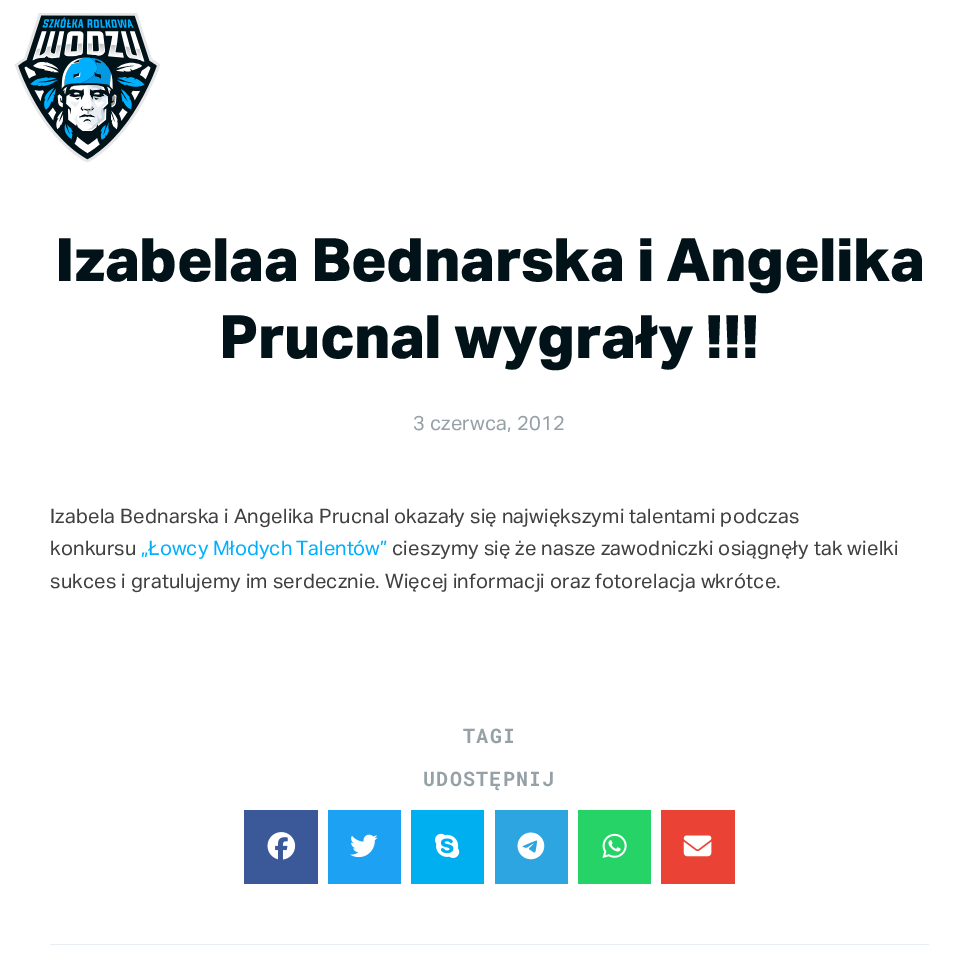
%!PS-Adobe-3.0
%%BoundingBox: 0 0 978 954
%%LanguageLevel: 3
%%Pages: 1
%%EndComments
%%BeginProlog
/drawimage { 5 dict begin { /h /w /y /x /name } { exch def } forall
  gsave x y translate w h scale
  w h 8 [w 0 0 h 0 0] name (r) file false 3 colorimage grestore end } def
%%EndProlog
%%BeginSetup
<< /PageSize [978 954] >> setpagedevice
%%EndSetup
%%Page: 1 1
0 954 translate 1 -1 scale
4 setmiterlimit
1 setgray
0 0 978 954 rectfill
(images/1.raw) 14 13 147 150 drawimage
0.231 0.349 0.596 setrgbcolor
244 810 74 74 rectfill
(images/2.raw) 267 832 29 28 drawimage
0.114 0.631 0.949 setrgbcolor
328 810 73 74 rectfill
(images/3.raw) 350 834 28 24 drawimage
0 0.686 0.941 setrgbcolor
411 810 73 74 rectfill
(images/4.raw) 435 833 25 25 drawimage
0.173 0.647 0.878 setrgbcolor
495 810 73 74 rectfill
(images/5.raw) 517 832 28 28 drawimage
0.145 0.827 0.4 setrgbcolor
578 810 73 74 rectfill
(images/6.raw) 602 833 25 25 drawimage
0.918 0.263 0.208 setrgbcolor
661 810 74 74 rectfill
(images/7.raw) 683 835 29 22 drawimage
0.914 0.933 0.949 setrgbcolor
50 944 879 1 rectfill
/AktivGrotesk-Bold [60 0 0 -60 0 0] selectfont
0.004 0.071 0.098 setrgbcolor
55 281 moveto -0.5 0 (Izabelaa Bednarska i Angelika) ashow
219 358 moveto -0.5 0 (Prucnal wygrały !!!) ashow
/AktivGrotesk-Regular [20 0 0 -20 0 0] selectfont
0.584 0.631 0.655 setrgbcolor
413 430 moveto 0.25 0 (3 czerwca, 2012) ashow
0.251 setgray
50 523 moveto 0.25 0 (Izabela Bednarska i Angelika Prucnal okazały się największymi talentami podczas) ashow
50 555 moveto 0.25 0 (konkursu) ashow
0 0.69 0.996 setrgbcolor
141 555 moveto („Łowcy Młodych Talentów”) show
0.251 setgray
392 555 moveto 0.25 0 (cieszymy się że nasze zawodniczki osiągnęły tak wielki) ashow
50 588 moveto 0.25 0 (sukces i gratulujemy im serdecznie. Więcej informacji oraz fotorelacja wkrótce.) ashow
/RobotoMono-Bold [20 0 0 -20 0 0] selectfont
0.584 0.631 0.655 setrgbcolor
463 743 moveto 1.25 0 (TAGI) ashow
423 786 moveto 1.25 0 (UDOSTĘPNIJ) ashow
showpage
%%EOF
